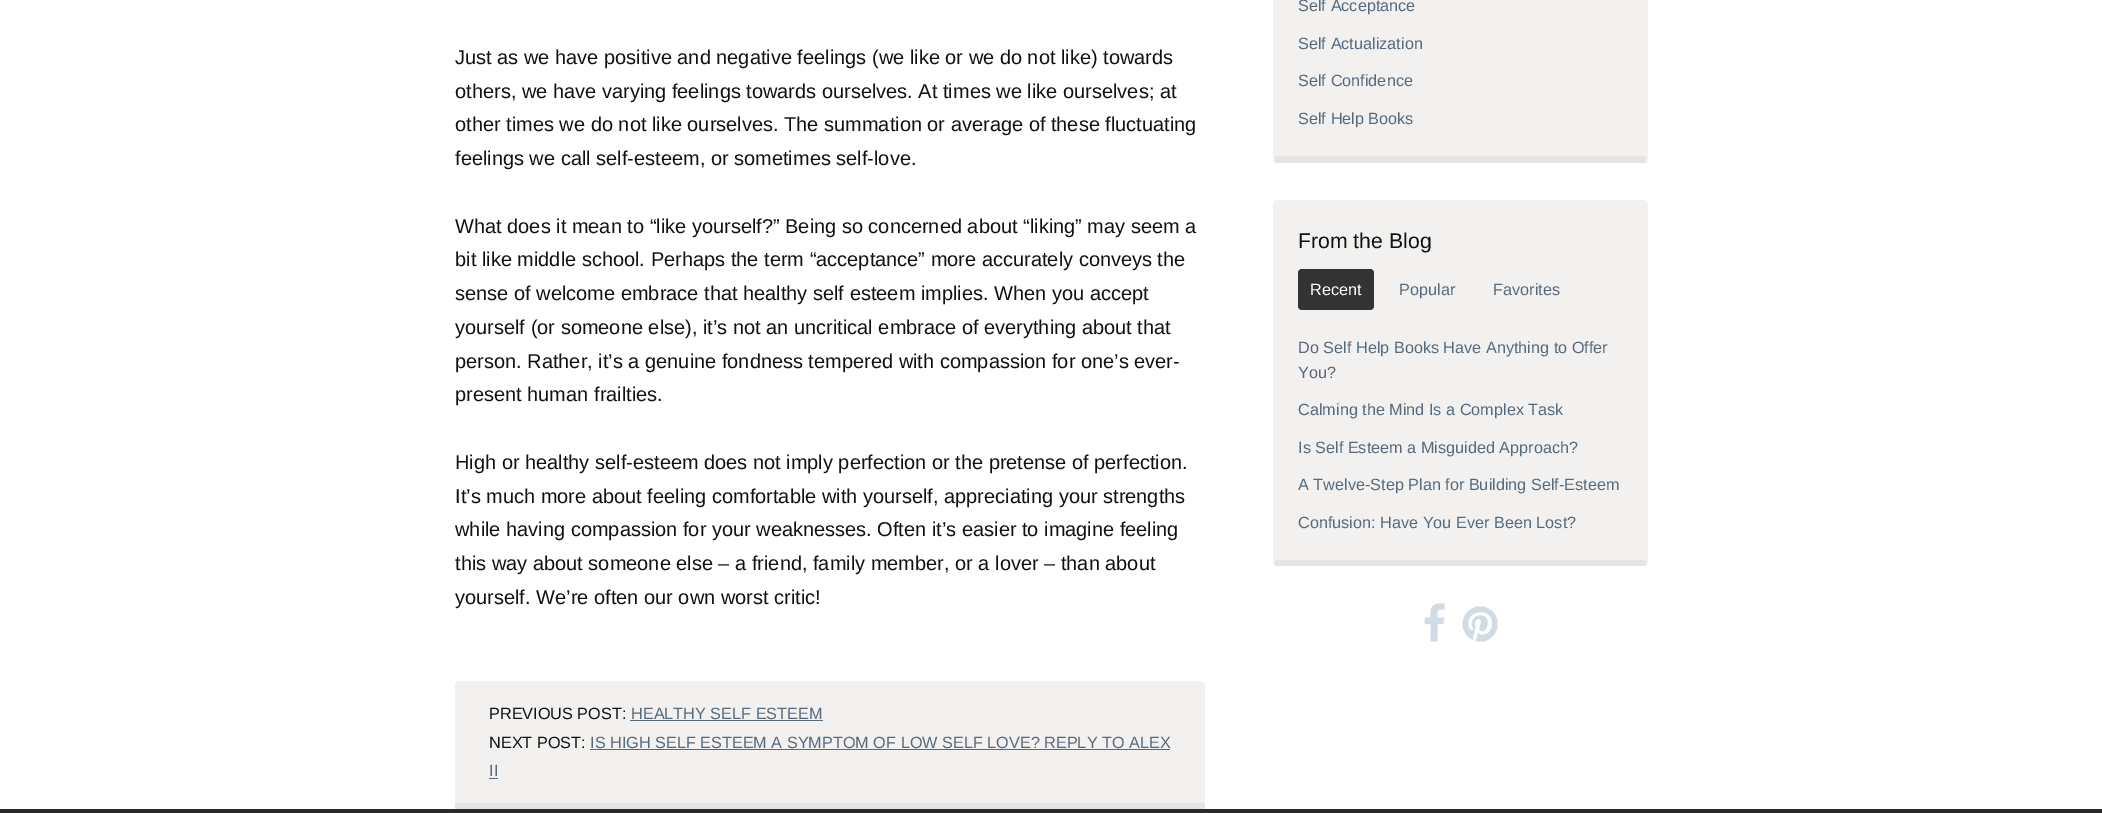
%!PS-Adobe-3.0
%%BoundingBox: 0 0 2102 813
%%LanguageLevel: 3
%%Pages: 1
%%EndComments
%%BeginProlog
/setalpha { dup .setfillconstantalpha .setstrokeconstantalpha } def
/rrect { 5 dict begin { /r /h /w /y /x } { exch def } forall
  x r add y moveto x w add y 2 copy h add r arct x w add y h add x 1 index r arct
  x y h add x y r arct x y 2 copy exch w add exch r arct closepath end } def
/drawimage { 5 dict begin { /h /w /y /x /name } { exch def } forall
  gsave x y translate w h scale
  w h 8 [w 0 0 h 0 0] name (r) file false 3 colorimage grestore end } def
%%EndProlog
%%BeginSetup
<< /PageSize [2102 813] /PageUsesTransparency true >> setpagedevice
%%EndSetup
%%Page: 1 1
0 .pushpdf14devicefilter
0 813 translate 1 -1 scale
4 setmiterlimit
0.161 setgray
0 0 2102 813 rectfill
1 setgray
0 0 2102 809 rectfill
0.953 0.945 0.937 setrgbcolor
newpath 459 681 moveto 1201 681 lineto 1203 681 1205 683 1205 685 curveto 1205 809 lineto 455 809 lineto 455 685 lineto 455 683 457 681 459 681 curveto closepath fill
0.906 0.898 0.89 setrgbcolor
455 803 750 6 rectfill
0.337 0.416 0.49 setrgbcolor
630 720 193 1 rectfill
590 749 580 1 rectfill
489 778 9 1 rectfill
0.953 0.945 0.937 setrgbcolor
1273 -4 375 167 4 rrect fill
0.05 setalpha
0 setgray
1275 156 371 7 rectfill
1 setalpha
0.953 0.945 0.937 setrgbcolor
1273 200 375 366 4 rrect fill
0.05 setalpha
0 setgray
1275 560 371 6 rectfill
1 setalpha
0.2 setgray
1298 269 76 41 4 rrect fill
(images/1.raw) 1424 603 21 39 drawimage
(images/2.raw) 1462 606 36 36 drawimage
/LiberationSans-Regular [20 0 0 -20 0 0] selectfont
0.067 setgray
455 64 moveto (Just as we have positive and negative feelings \(we like or we do not like\) towards) show
455 98 moveto (others, we have varying feelings towards ourselves. At times we like ourselves; at) show
455 131 moveto (other times we do not like ourselves. The summation or average of these fluctuating) show
455 165 moveto (feelings we call self-esteem, or sometimes self-love.) show
455 233 moveto (What does it mean to “like yourself?” Being so concerned about “liking” may seem a) show
455 266 moveto (bit like middle school. Perhaps the term “acceptance” more accurately conveys the) show
455 300 moveto (sense of welcome embrace that healthy self esteem implies. When you accept) show
455 334 moveto (yourself \(or someone else\), it’s not an uncritical embrace of everything about that) show
455 368 moveto (person. Rather, it’s a genuine fondness tempered with compassion for one’s ever-) show
455 401 moveto (present human frailties.) show
455 469 moveto (High or healthy self-esteem does not imply perfection or the pretense of perfection.) show
455 503 moveto (It’s much more about feeling comfortable with yourself, appreciating your strengths) show
455 536 moveto (while having compassion for your weaknesses. Often it’s easier to imagine feeling) show
455 570 moveto (this way about someone else – a friend, family member, or a lover – than about) show
455 604 moveto (yourself. We’re often our own worst critic!) show
/LiberationSans-Regular [16.25 0 0 -16.25 0 0] selectfont
489 719 moveto (PREVIOUS POST:) show
0.337 0.416 0.49 setrgbcolor
631 719 moveto (HEALTHY SELF ESTEEM) show
0.067 setgray
489 748 moveto (NEXT POST:) show
0.337 0.416 0.49 setrgbcolor
590 748 moveto (IS HIGH SELF ESTEEM A SYMPTOM OF LOW SELF LOVE? REPLY TO ALEX) show
489 776 moveto (II) show
1298 11 moveto (Self Acceptance) show
1298 49 moveto (Self Actualization) show
1298 86 moveto (Self Confidence) show
1298 124 moveto (Self Help Books) show
/LiberationSans-Regular [21.25 0 0 -21.25 0 0] selectfont
0.067 setgray
1298 248 moveto (From the Blog) show
/LiberationSans-Regular [16.25 0 0 -16.25 0 0] selectfont
1 setgray
1310 295 moveto (Recent) show
0.337 0.416 0.49 setrgbcolor
1399 295 moveto (Popular) show
1493 295 moveto (Favorites) show
1298 353 moveto (Do Self Help Books Have Anything to Offer) show
1298 378 moveto (You?) show
1298 415 moveto (Calming the Mind Is a Complex Task) show
1298 453 moveto (Is Self Esteem a Misguided Approach?) show
1298 490 moveto (A Twelve-Step Plan for Building Self-Esteem) show
1298 528 moveto (Confusion: Have You Ever Been Lost?) show
.poppdf14devicefilter showpage
%%EOF
